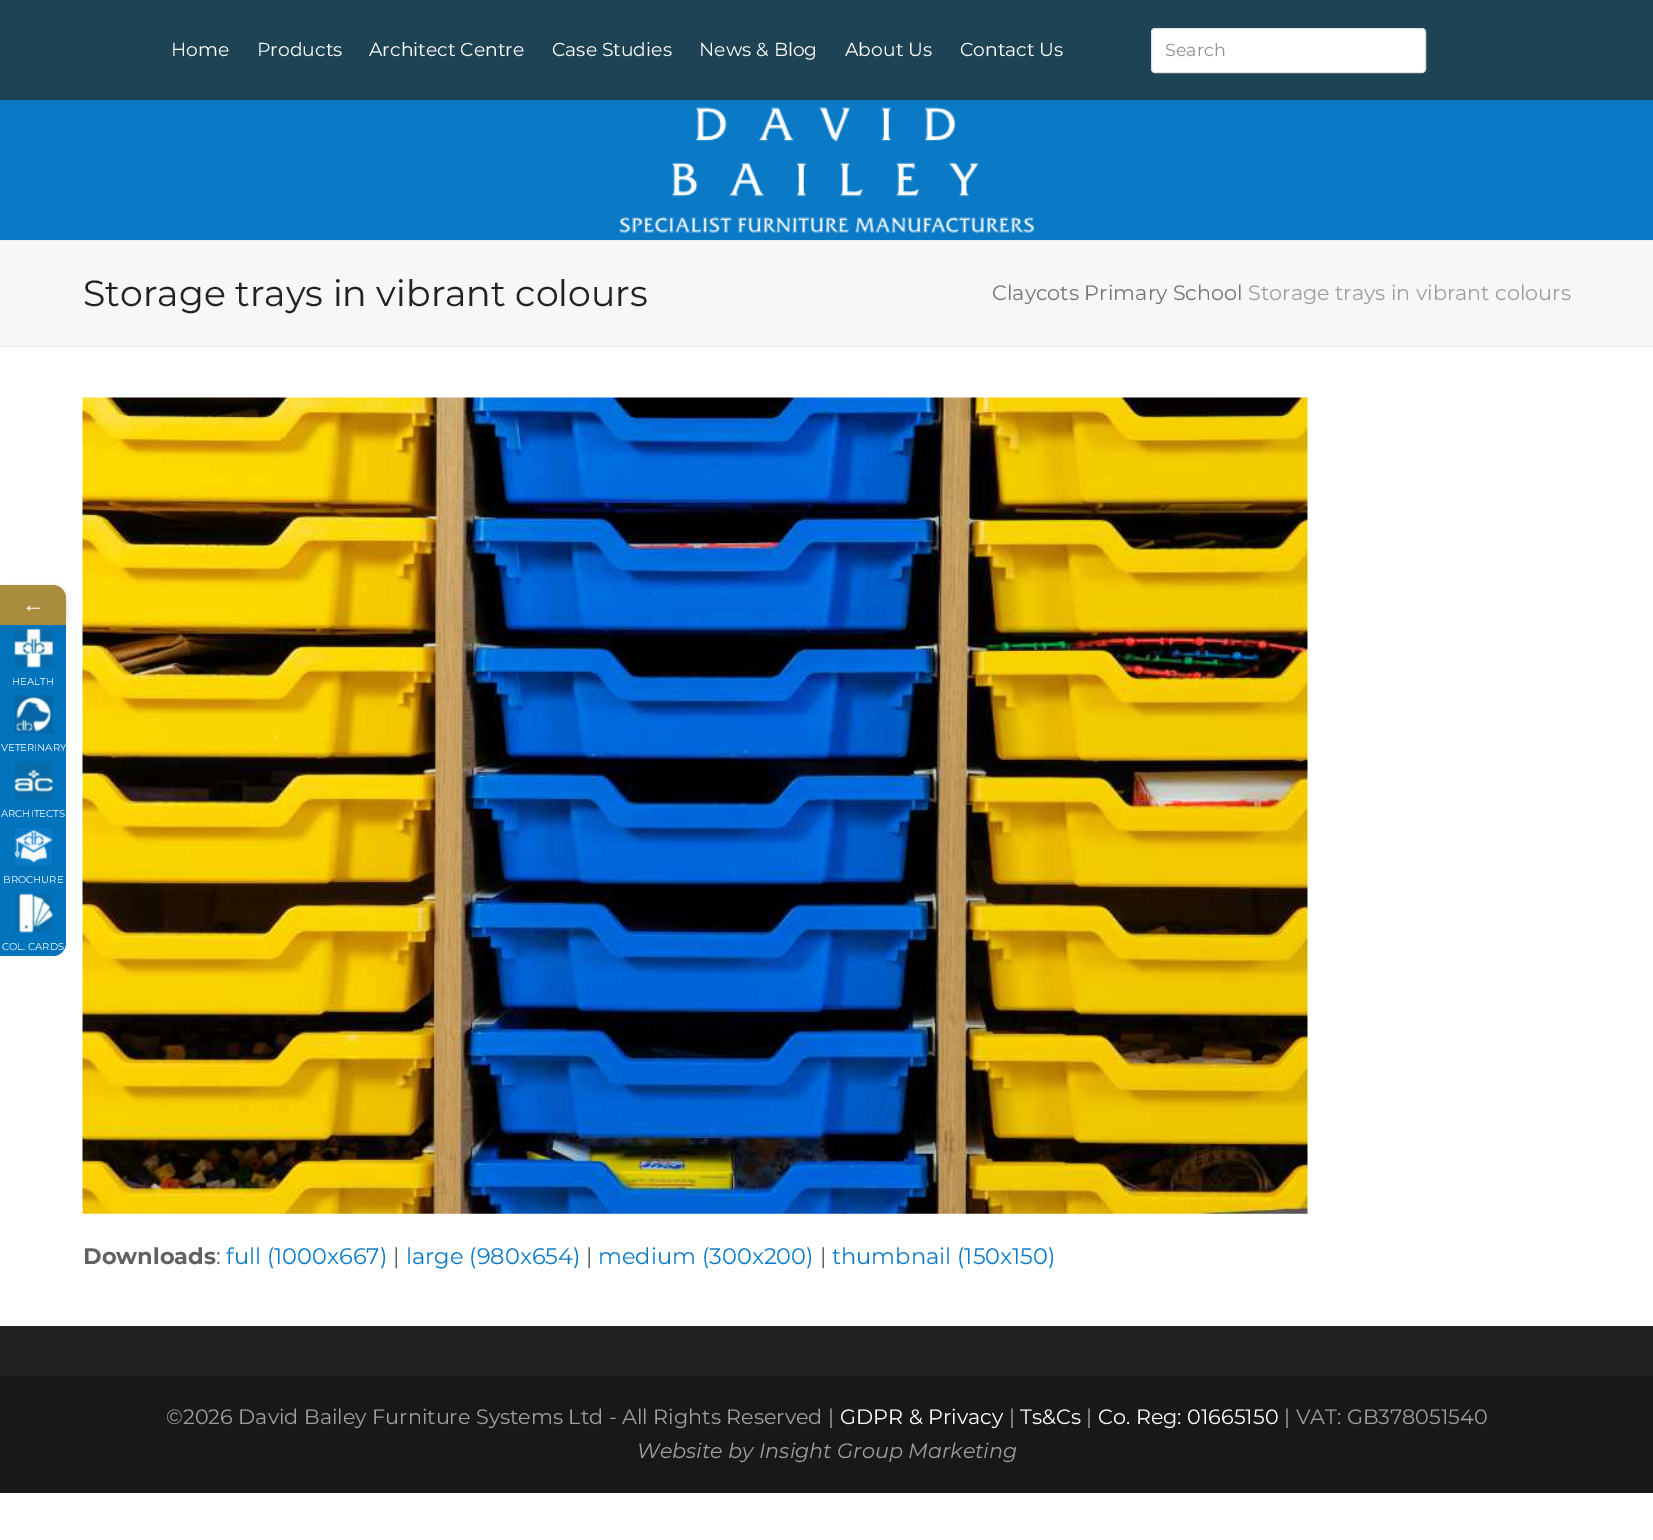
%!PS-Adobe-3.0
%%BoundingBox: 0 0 1653 1540
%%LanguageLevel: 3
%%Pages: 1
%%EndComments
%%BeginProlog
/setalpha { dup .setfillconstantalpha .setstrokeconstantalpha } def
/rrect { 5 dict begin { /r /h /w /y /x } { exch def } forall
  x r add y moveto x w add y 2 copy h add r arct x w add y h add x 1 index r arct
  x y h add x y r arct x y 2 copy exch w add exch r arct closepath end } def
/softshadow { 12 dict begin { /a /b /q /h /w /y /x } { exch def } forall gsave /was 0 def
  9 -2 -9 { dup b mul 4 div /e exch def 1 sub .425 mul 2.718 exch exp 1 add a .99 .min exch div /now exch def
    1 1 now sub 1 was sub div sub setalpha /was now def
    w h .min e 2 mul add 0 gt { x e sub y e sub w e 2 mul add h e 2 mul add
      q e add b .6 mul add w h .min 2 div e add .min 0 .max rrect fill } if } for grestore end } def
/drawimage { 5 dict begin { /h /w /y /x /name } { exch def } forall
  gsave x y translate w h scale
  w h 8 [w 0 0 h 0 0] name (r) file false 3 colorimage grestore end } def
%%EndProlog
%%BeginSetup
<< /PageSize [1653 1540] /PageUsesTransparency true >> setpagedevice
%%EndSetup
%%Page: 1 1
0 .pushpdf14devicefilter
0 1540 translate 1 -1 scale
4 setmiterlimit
1 setgray
0 0 1653 1540 rectfill
0.114 0.263 0.329 setrgbcolor
0 0 1653 100 rectfill
1 setgray
1151.5 28.5 274 44 3.5 rrect gsave fill grestore
0.878 setgray
stroke
0 setgray
0 589 66 40 13 4 0.16 softshadow
0.671 0.553 0.247 setrgbcolor
newpath 0 585 moveto 53 585 lineto 60 585 66 591 66 598 curveto 66 625 lineto 0 625 lineto closepath fill
0 0.451 0.741 setrgbcolor
0 625 66 265 rectfill
(images/1.raw) 14 628 39 40 drawimage
(images/2.raw) 14 695 39 39 drawimage
(images/3.raw) 14 761 39 39 drawimage
(images/4.raw) 14 828 39 38 drawimage
newpath 0 890 moveto 66 890 lineto 66 943 lineto 66 950 60 956 53 956 curveto 0 956 lineto closepath fill
(images/5.raw) 15 893 38 40 drawimage
0.039 0.478 0.776 setrgbcolor
0 100 1653 140 rectfill
(images/6.raw) 620 107 414 126 drawimage
0.969 setgray
0 241 1653 105 rectfill
0.933 setgray
0 240 1653 1 rectfill
0 346 1653 1 rectfill
(images/7.raw) 82 397 1226 817 drawimage
0.133 setgray
0 1326 1653 50 rectfill
0.094 setgray
0 1376 1653 117 rectfill
/Montserrat-Regular [18.75 0 0 -18.75 0 0] selectfont
1 setgray
171 56 moveto (Home) show
257 56 moveto (Products) show
369 56 moveto (Architect Centre) show
552 56 moveto (Case Studies) show
699 56 moveto (News & Blog) show
845 56 moveto (About Us) show
960 56 moveto (Contact Us) show
/Montserrat-Regular [17.5 0 0 -17.5 0 0] selectfont
0.565 setgray
1165 56 moveto (Search) show
/LiberationSerif-Regular [22.5 0 0 -22.5 0 0] selectfont
1 setgray
22 612 moveto (←) show
/Montserrat-Regular [10 0 0 -10 0 0] selectfont
12 685 moveto (HEALTH) show
1 751 moveto (VETERINARY) show
1 817 moveto (ARCHITECTS) show
3 883 moveto (BROCHURE) show
2 950 moveto (COL. CARDS) show
/Montserrat-Regular [36.3 0 0 -36.3 0 0] selectfont
0.133 setgray
83 306 moveto (Storage trays in vibrant colours) show
/Montserrat-Regular [20.75 0 0 -20.75 0 0] selectfont
0.459 setgray
992 300 moveto (Claycots Primary School) show
0.62 setgray
1248 300 moveto (Storage trays in vibrant colours) show
/Montserrat-Bold [22.5 0 0 -22.5 0 0] selectfont
0.38 setgray
83 1264 moveto (Downloads) show
/Montserrat-Regular [22.5 0 0 -22.5 0 0] selectfont
216 1264 moveto (:) show
0.039 0.478 0.776 setrgbcolor
226 1264 moveto (full \(1000x667\)) show
0.38 setgray
393 1264 moveto (|) show
0.039 0.478 0.776 setrgbcolor
406 1264 moveto (large \(980x654\)) show
0.38 setgray
586 1264 moveto (|) show
0.039 0.478 0.776 setrgbcolor
598 1264 moveto (medium \(300x200\)) show
0.38 setgray
820 1264 moveto (|) show
0.039 0.478 0.776 setrgbcolor
832 1264 moveto (thumbnail \(150x150\)) show
/Montserrat-Regular [20.75 0 0 -20.75 0 0] selectfont
0.62 setgray
166 1424 moveto (©2026 David Bailey Furniture Systems Ltd - All Rights Reserved |) show
1 setgray
840 1424 moveto (GDPR & Privacy) show
0.62 setgray
1009 1424 moveto (|) show
1 setgray
1020 1424 moveto (Ts&Cs) show
0.62 setgray
1086 1424 moveto (|) show
1 setgray
1098 1424 moveto (Co. Reg: 01665150) show
0.62 setgray
1284 1424 moveto (| VAT: GB378051540) show
/Montserrat-Italic [20.75 0 0 -20.75 0 0] selectfont
637 1458 moveto (Website by Insight Group Marketing) show
.poppdf14devicefilter showpage
%%EOF
